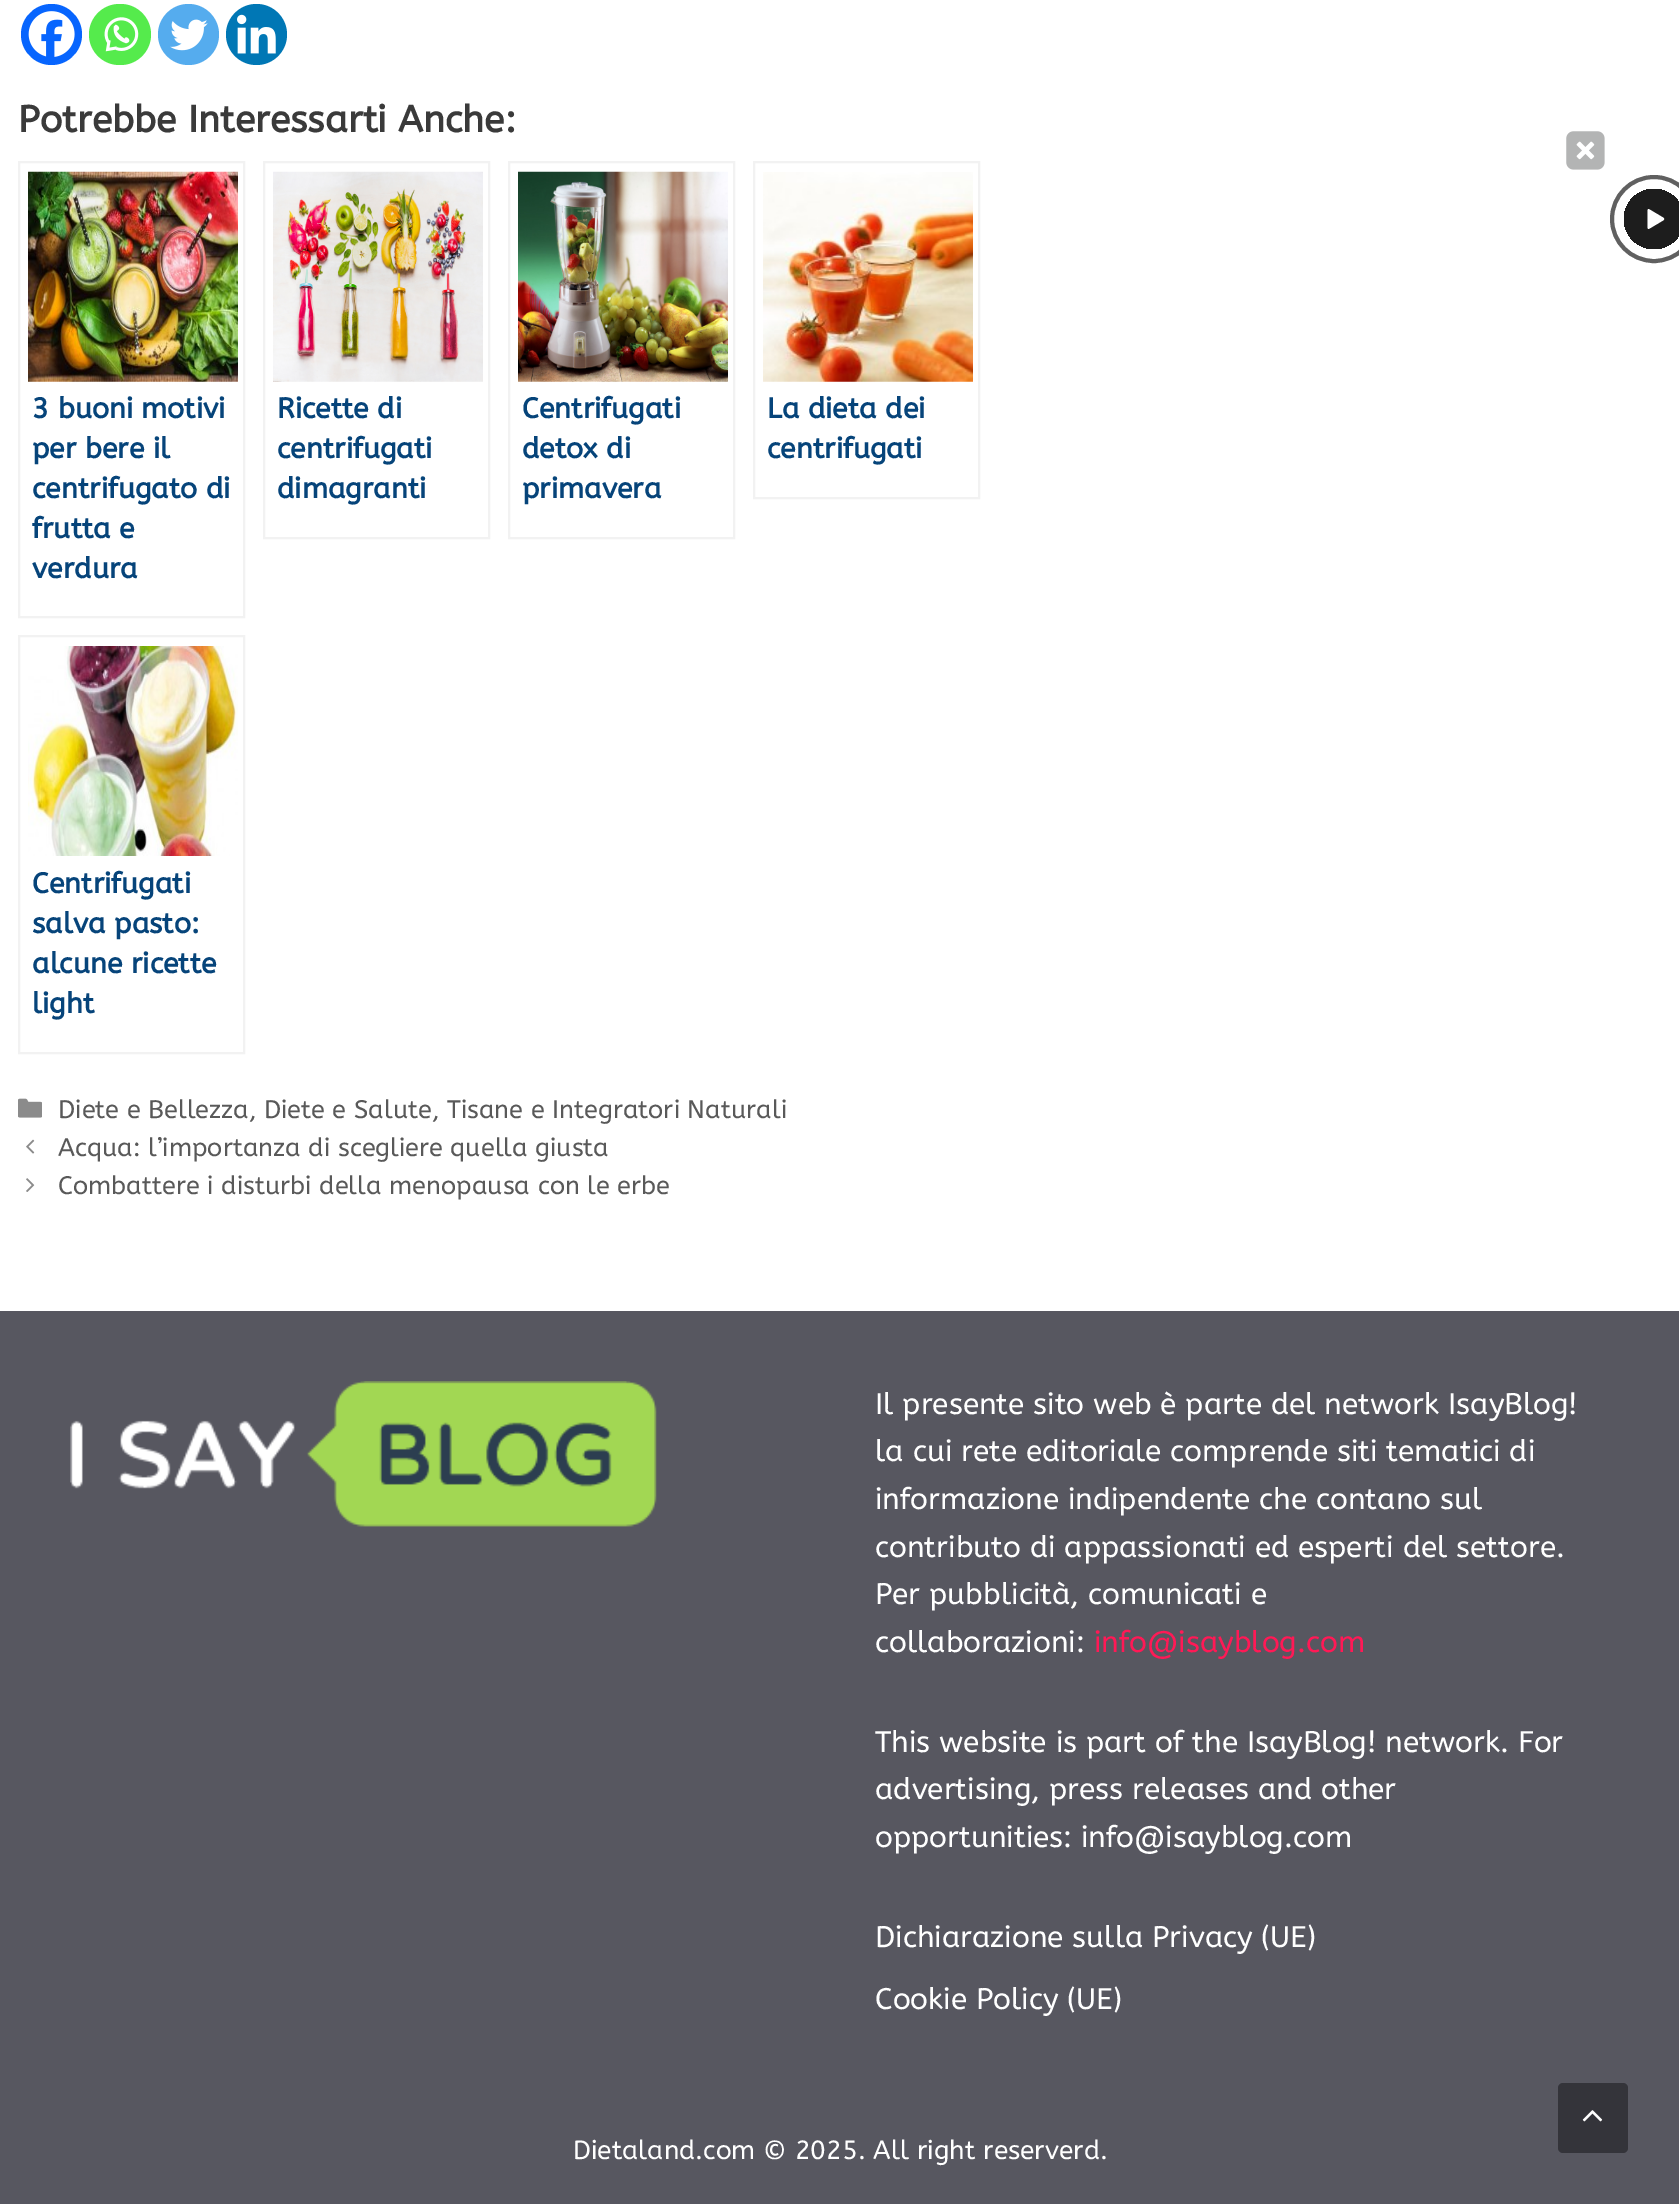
%!PS-Adobe-3.0
%%BoundingBox: 0 0 1679 2204
%%LanguageLevel: 3
%%Pages: 1
%%EndComments
%%BeginProlog
/rrect { 5 dict begin { /r /h /w /y /x } { exch def } forall
  x r add y moveto x w add y 2 copy h add r arct x w add y h add x 1 index r arct
  x y h add x y r arct x y 2 copy exch w add exch r arct closepath end } def
/drawimage { 5 dict begin { /h /w /y /x /name } { exch def } forall
  gsave x y translate w h scale
  w h 8 [w 0 0 h 0 0] name (r) file false 3 colorimage grestore end } def
%%EndProlog
%%BeginSetup
<< /PageSize [1679 2204] >> setpagedevice
%%EndSetup
%%Page: 1 1
0 2204 translate 1 -1 scale
4 setmiterlimit
1 setgray
0 0 1679 2204 rectfill
0.027 0.396 0.996 setrgbcolor
newpath 51.5 34.5 30.5 0 360 arc closepath fill
(images/1.raw) 28 11 47 46 drawimage
0.333 0.922 0.298 setrgbcolor
89 4 62 61 30.5 rrect fill
(images/2.raw) 104 17 35 35 drawimage
0.333 0.675 0.933 setrgbcolor
newpath 188.5 34.5 30.5 0 360 arc closepath fill
(images/3.raw) 170 19 38 32 drawimage
0 0.467 0.71 setrgbcolor
newpath 256.5 34.5 30.5 0 360 arc closepath fill
(images/4.raw) 237 14 39 40 drawimage
0.949 setgray
2 setlinewidth
19 162 225 455 rectstroke
(images/5.raw) 28 171 210 211 drawimage
264 162 225 376 rectstroke
(images/6.raw) 273 171 210 211 drawimage
509 162 225 376 rectstroke
(images/7.raw) 518 171 210 211 drawimage
754 162 225 336 rectstroke
(images/8.raw) 763 172 210 210 drawimage
19 636 225 417 rectstroke
(images/9.raw) 28 646 210 210 drawimage
(images/10.raw) 1566 131 39 39 drawimage
0.376 setgray
4 setlinewidth
newpath 1654 219 42 0 360 arc closepath stroke
gsave newpath 1654 219 30 0 360 arc closepath clip newpath
<< /ShadingType 2 /ColorSpace /DeviceRGB /Coords [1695 170 1618 253] /Extend [true true] /Function << /FunctionType 3 /Domain [0 1] /Functions [<< /FunctionType 2 /Domain [0 1] /C0 [0.11 0.11 0.11] /C1 [0.114 0.114 0.114] /N 1 >> << /FunctionType 2 /Domain [0 1] /C0 [0.114 0.114 0.114] /C1 [0.114 0.114 0.114] /N 1 >> << /FunctionType 2 /Domain [0 1] /C0 [0.114 0.114 0.114] /C1 [0.114 0.114 0.114] /N 1 >>] /Bounds [0.26 0.71] /Encode [0 1 0 1 0 1] >> >> shfill grestore
1 setgray
newpath 1647.5 211 moveto 1647.5 209.5 1648.5 208.5 1649.5 209.5 curveto 1663 217.5 lineto 1664.5 218.5 1664.5 219.5 1663 220.5 curveto 1649.5 228.5 lineto 1648.5 229.5 1647.5 228.5 1647.5 227 curveto closepath fill
(images/11.raw) 18 1098 24 20 drawimage
(images/12.raw) 26 1139 9 15 drawimage
(images/13.raw) 26 1178 9 14 drawimage
0.341 0.341 0.376 setrgbcolor
0 1311 1679 893 rectfill
(images/14.raw) 70 1381 587 146 drawimage
0.204 0.204 0.227 setrgbcolor
1558 2083 70 70 5 rrect fill
(images/15.raw) 1582 2110 21 12 drawimage
/ABeeZee-Bold [37.25 0 0 -37.25 0 0] selectfont
0.227 setgray
18 132 moveto (Potrebbe Interessarti Anche:) show
/ABeeZee-Bold [28.5 0 0 -28.5 0 0] selectfont
0.024 0.267 0.478 setrgbcolor
32 418 moveto (3 buoni motivi) show
32 458 moveto (per bere il) show
32 498 moveto (centrifugato di) show
gsave
32 390 210 200 rectclip
32 538 moveto (frutta e) show
grestore
32 578 moveto (verdura) show
277 418 moveto (Ricette di) show
277 458 moveto (centrifugati) show
277 498 moveto (dimagranti) show
522 418 moveto (Centrifugati) show
522 458 moveto (detox di) show
522 498 moveto (primavera) show
767 418 moveto (La dieta dei) show
767 458 moveto (centrifugati) show
32 893 moveto (Centrifugati) show
32 933 moveto (salva pasto:) show
32 973 moveto (alcune ricette) show
32 1013 moveto (light) show
/ABeeZee-Regular [25.3 0 0 -25.3 0 0] selectfont
0.349 setgray
58 1118 moveto (Diete e Bellezza, Diete e Salute, Tisane e Integratori Naturali) show
58 1156 moveto (Acqua: l’importanza di scegliere quella giusta) show
58 1194 moveto (Combattere i disturbi della menopausa con le erbe) show
/ABeeZee-Regular [29.75 0 0 -29.75 0 0] selectfont
1 setgray
875 1414 moveto (Il presente sito web è parte del network IsayBlog!) show
875 1461 moveto (la cui rete editoriale comprende siti tematici di) show
875 1509 moveto (informazione indipendente che contano sul) show
875 1557 moveto (contributo di appassionati ed esperti del settore.) show
875 1604 moveto (Per pubblicità, comunicati e) show
875 1652 moveto (collaborazioni:) show
1 0.098 0.337 setrgbcolor
1094 1652 moveto (info@isayblog.com) show
1 setgray
875 1752 moveto (This website is part of the IsayBlog! network. For) show
875 1799 moveto (advertising, press releases and other) show
875 1847 moveto (opportunities: info@isayblog.com) show
875 1947 moveto (Dichiarazione sulla Privacy \(UE\)) show
875 2009 moveto (Cookie Policy \(UE\)) show
/ABeeZee-Regular [26.25 0 0 -26.25 0 0] selectfont
573 2159 moveto (Dietaland.com © 2025. All right reserverd.) show
showpage
%%EOF
